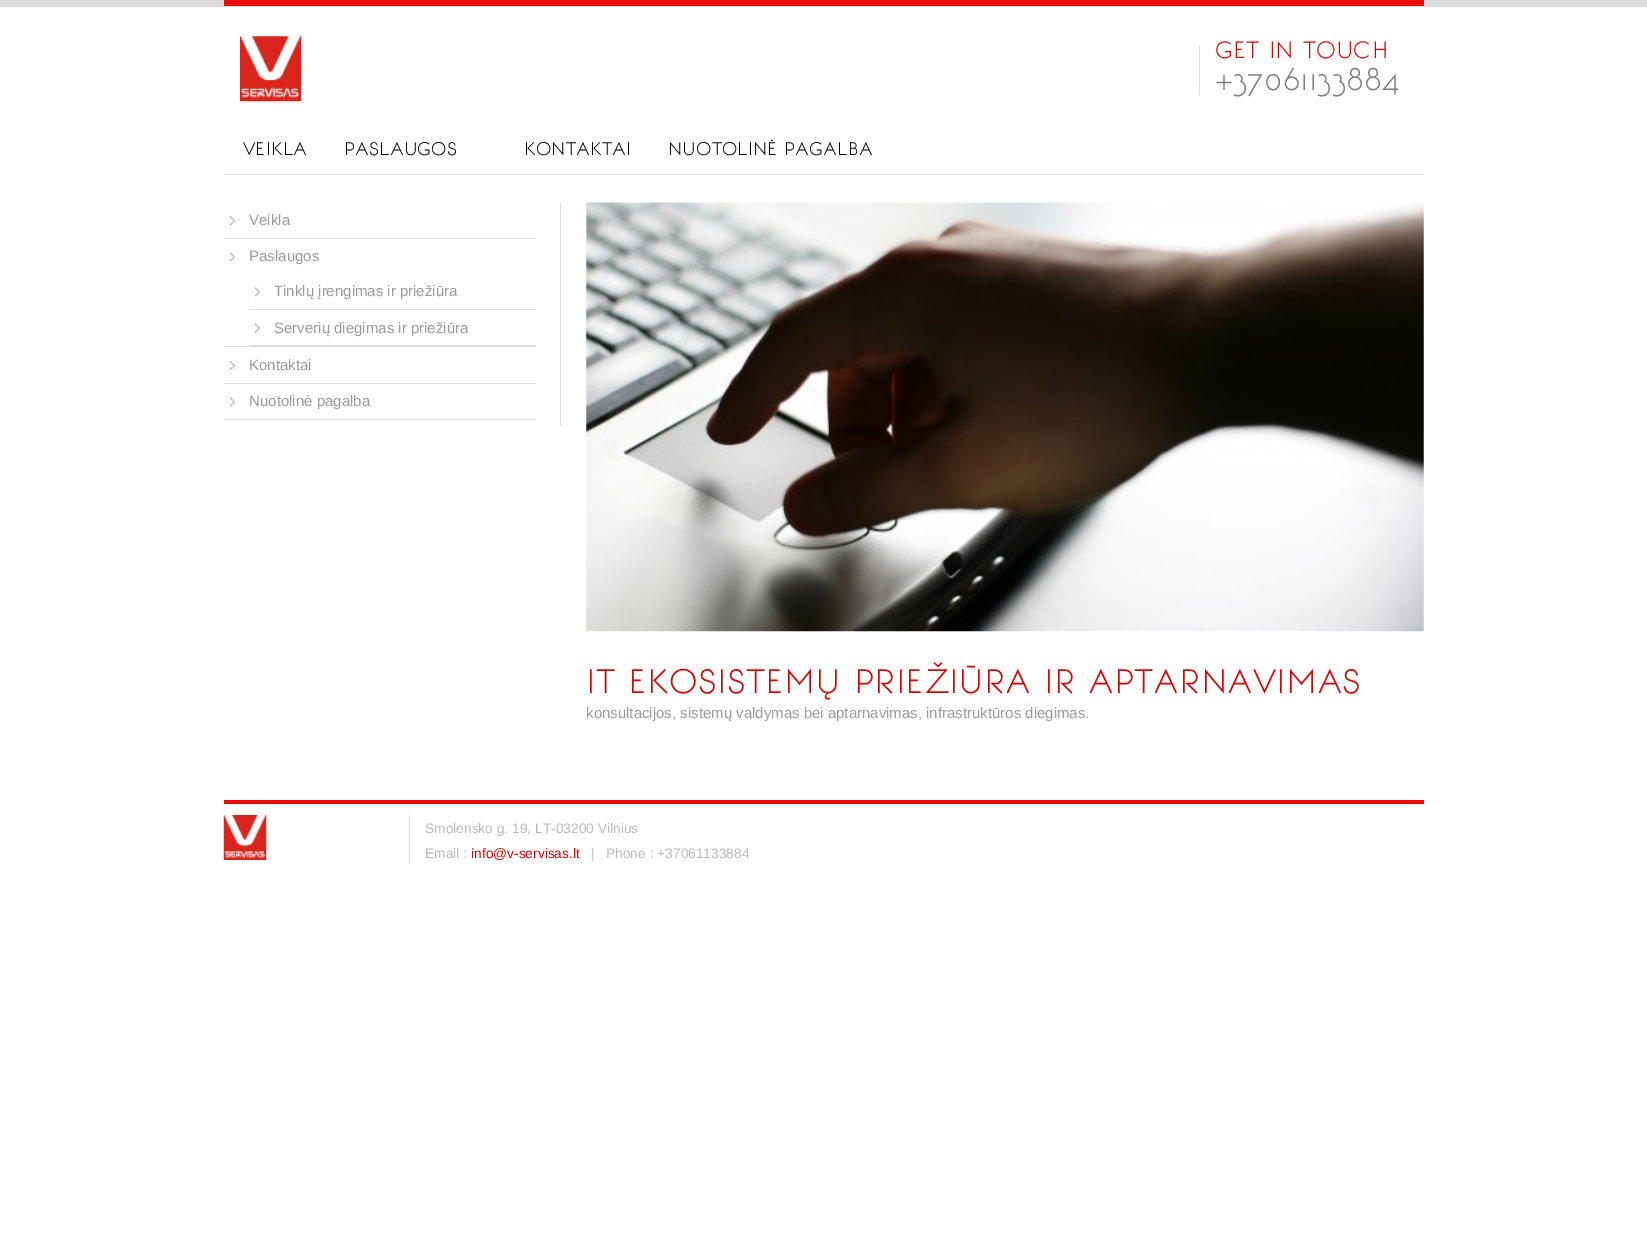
%!PS-Adobe-3.0
%%BoundingBox: 0 0 1647 1236
%%LanguageLevel: 3
%%Pages: 1
%%EndComments
%%BeginProlog
/drawimage { 5 dict begin { /h /w /y /x /name } { exch def } forall
  gsave x y translate w h scale
  w h 8 [w 0 0 h 0 0] name (r) file false 3 colorimage grestore end } def
%%EndProlog
%%BeginSetup
<< /PageSize [1647 1236] >> setpagedevice
%%EndSetup
%%Page: 1 1
0 1236 translate 1 -1 scale
4 setmiterlimit
1 setgray
0 0 1647 1236 rectfill
0.863 setgray
0 0 1647 7 rectfill
0.918 0.047 0.047 setrgbcolor
224 0 1200 6 rectfill
(images/1.raw) 240 36 62 66 drawimage
0.863 setgray
1199 45 1 50 rectfill
224 174 1200 1 rectfill
560 203 1 223 rectfill
(images/2.raw) 230 216 5 9 drawimage
224 238 312 1 rectfill
(images/3.raw) 230 252 5 10 drawimage
224 346 312 1 rectfill
(images/3.raw) 255 287 5 10 drawimage
249 309 287 1 rectfill
(images/4.raw) 255 323 5 10 drawimage
249 345 287 1 rectfill
(images/2.raw) 230 361 5 9 drawimage
224 383 312 1 rectfill
(images/3.raw) 230 397 5 10 drawimage
224 419 312 1 rectfill
(images/5.raw) 586 202 838 430 drawimage
0.918 0.047 0.047 setrgbcolor
224 800 1200 4 rectfill
0.863 setgray
409 815 1 49 rectfill
(images/6.raw) 223 815 44 45 drawimage
/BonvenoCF-Light [22.5 0 0 -22.5 0 0] selectfont
0.824 0.027 0.027 setrgbcolor
1215 58 moveto (GET IN TOUCH) show
/BonvenoCF-Light [30 0 0 -30 0 0] selectfont
0.486 setgray
1215 90 moveto (+37061133884) show
/BonvenoCF-Light [17.5 0 0 -17.5 0 0] selectfont
0 setgray
243 155 moveto (VEIKLA) show
344 155 moveto (PASLAUGOS) show
524 155 moveto (KONTAKTAI) show
668 155 moveto (NUOTOLINĖ PAGALBA) show
/LiberationSans-Regular [15 0 0 -15 0 0] selectfont
0.608 setgray
249 225 moveto (Veikla) show
249 261 moveto (Paslaugos) show
274 296 moveto (Tinklų įrengimas ir priežiūra) show
274 333 moveto (Serverių diegimas ir priežiūra) show
249 370 moveto (Kontaktai) show
249 406 moveto (Nuotolinė pagalba) show
/BonvenoCF-Light [32.5 0 0 -32.5 0 0] selectfont
0.824 0.027 0.027 setrgbcolor
586 693 moveto (IT EKOSISTEMŲ PRIEŽIŪRA IR APTARNAVIMAS) show
/LiberationSans-Regular [15 0 0 -15 0 0] selectfont
0.608 setgray
586 718 moveto (konsultacijos, sistemų valdymas bei aptarnavimas, infrastruktūros diegimas.) show
/LiberationSans-Regular [13.75 0 0 -13.75 0 0] selectfont
0.733 0.729 0.729 setrgbcolor
425 833 moveto (Smolensko g. 19, LT-03200 Vilnius) show
425 858 moveto (Email :) show
0.824 0.027 0.027 setrgbcolor
471 858 moveto (info@v-servisas.lt) show
0.733 0.729 0.729 setrgbcolor
591 858 moveto (|   Phone : +37061133884) show
showpage
%%EOF
